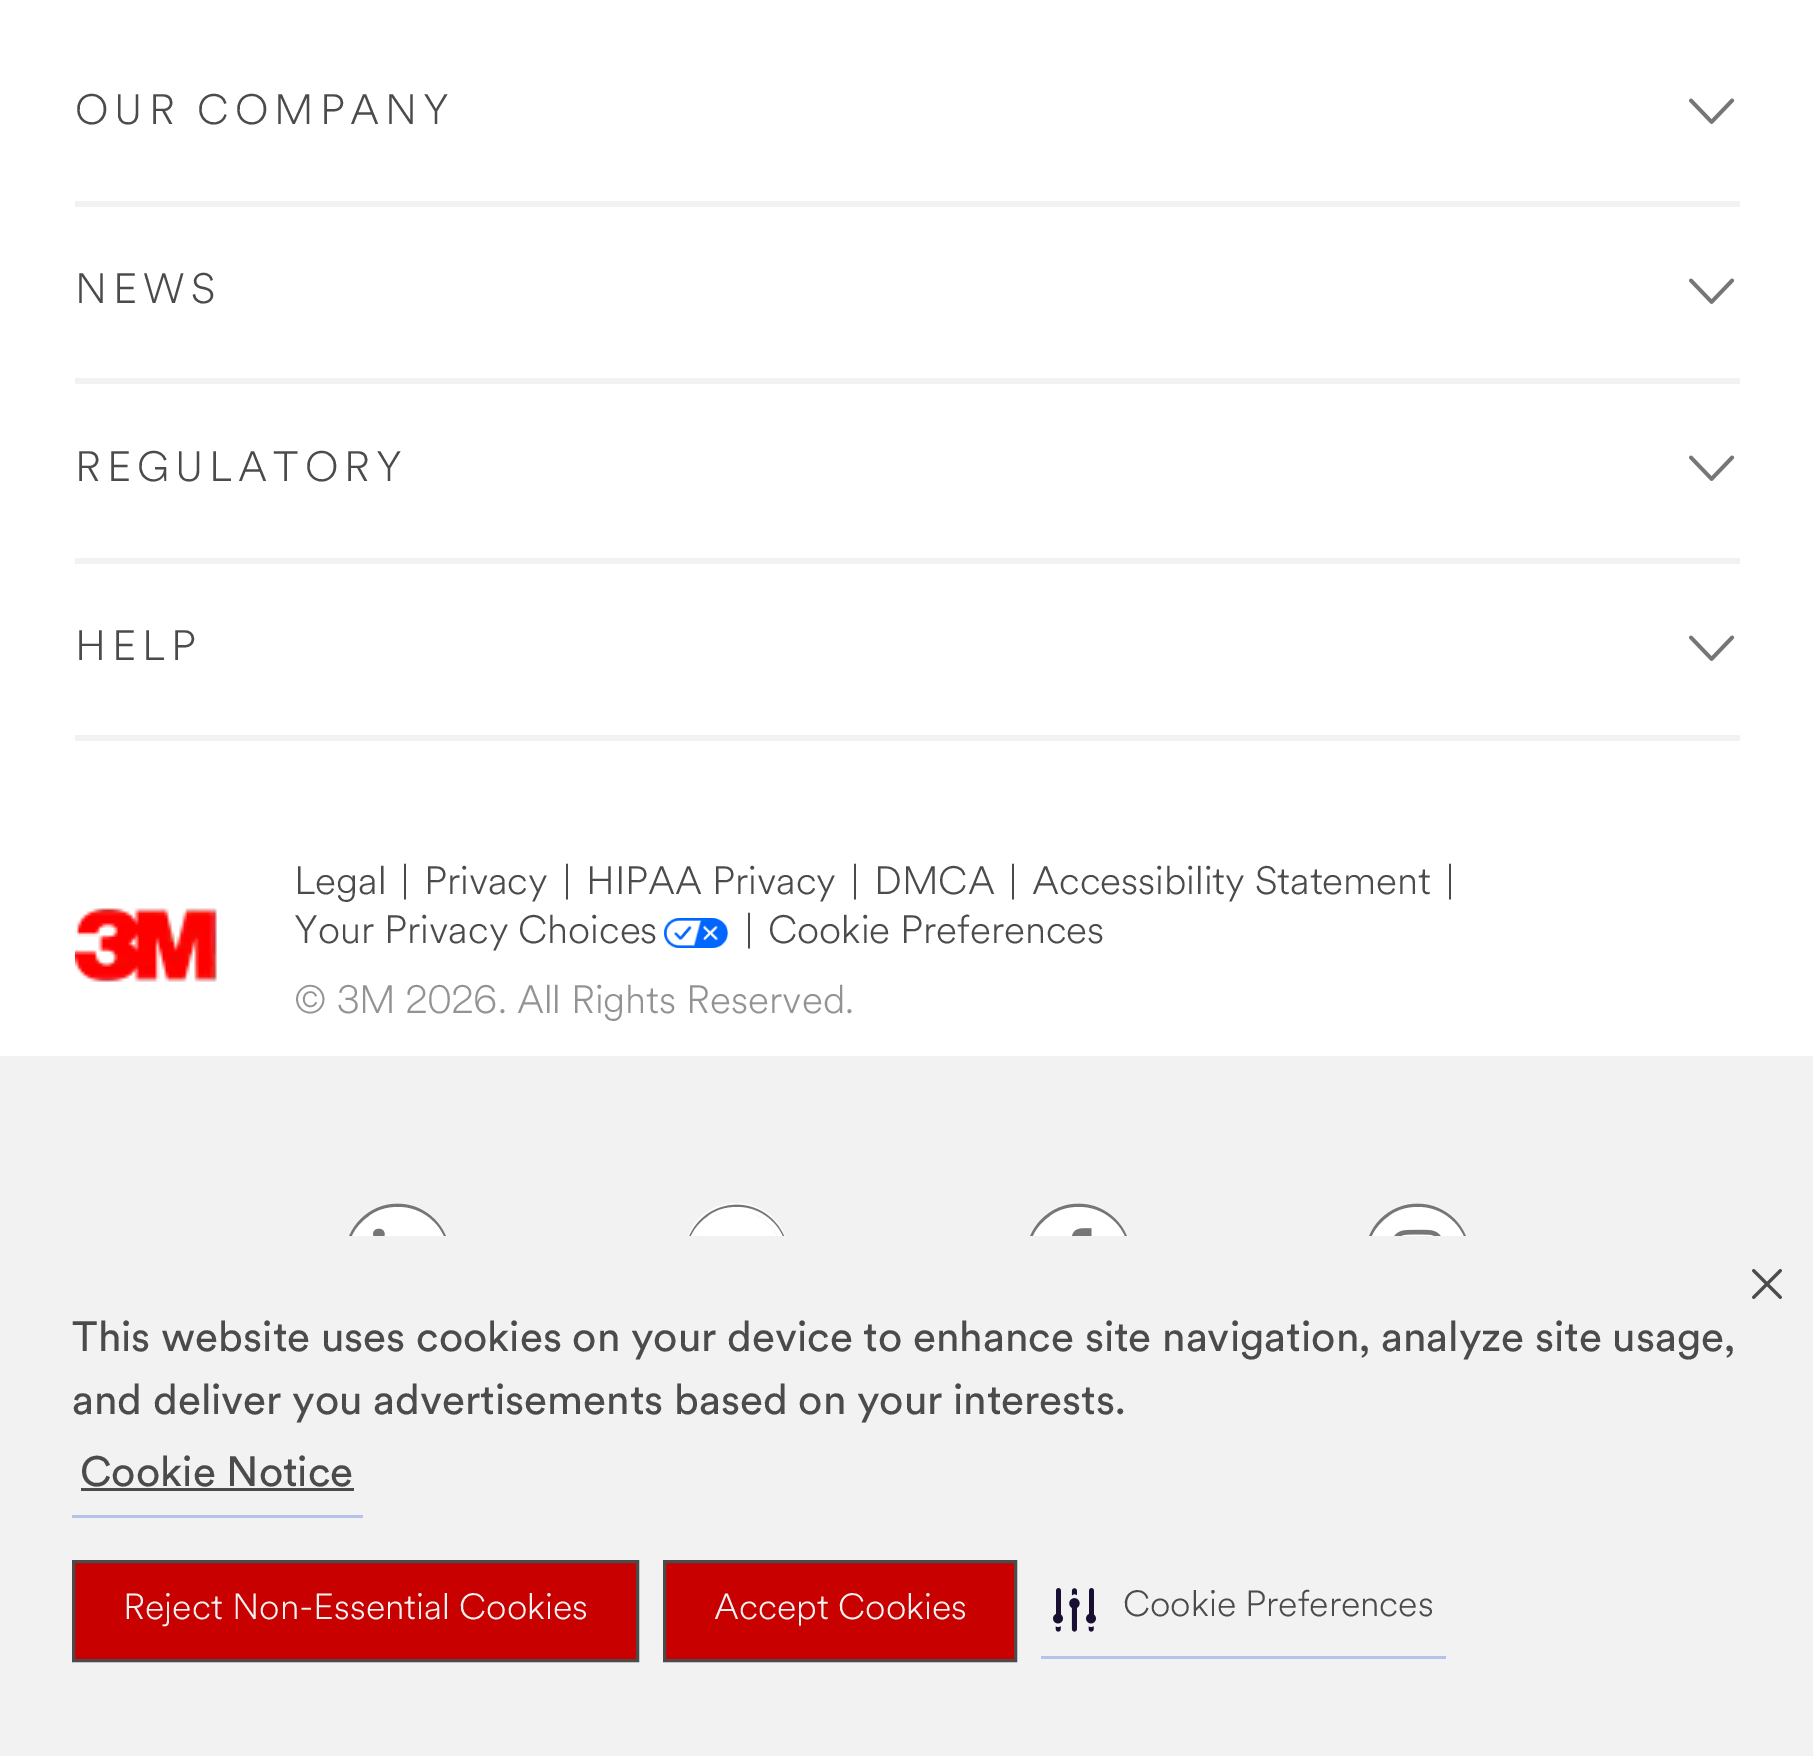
%!PS-Adobe-3.0
%%BoundingBox: 0 0 1813 1756
%%LanguageLevel: 3
%%Pages: 1
%%EndComments
%%BeginProlog
/drawimage { 5 dict begin { /h /w /y /x /name } { exch def } forall
  gsave x y translate w h scale
  w h 8 [w 0 0 h 0 0] name (r) file false 3 colorimage grestore end } def
%%EndProlog
%%BeginSetup
<< /PageSize [1813 1756] >> setpagedevice
%%EndSetup
%%Page: 1 1
0 1756 translate 1 -1 scale
4 setmiterlimit
1 setgray
0 0 1813 1756 rectfill
0.949 setgray
75 201 1665 6 rectfill
(images/1.raw) 1689 98 46 26 drawimage
75 378 1665 6 rectfill
(images/1.raw) 1689 278 46 26 drawimage
75 558 1665 6 rectfill
(images/1.raw) 1689 455 46 26 drawimage
75 735 1665 6 rectfill
(images/1.raw) 1689 635 46 26 drawimage
(images/2.raw) 75 908 142 74 drawimage
(images/3.raw) 664 918 65 30 drawimage
0 1056 1813 180 rectfill
1 setgray
newpath 397.5 1255.5 52.5 0 360 arc closepath fill
(images/4.raw) 349 1203 97 33 drawimage
newpath 398 1307 moveto 350 1307 329 1245 368 1217 curveto 376 1210 387 1207 398 1207 curveto 408 1207 419 1210 428 1217 curveto 466 1245 445 1307 398 1307 curveto closepath 398 1211 moveto 353 1211 334 1270 372 1295 curveto 380 1300 389 1303 398 1303 curveto 408 1303 417 1299 425 1294 curveto 460 1267 442 1211 398 1211 curveto closepath fill
newpath 736.5 1255.5 52.5 0 360 arc closepath fill
(images/5.raw) 689 1204 96 32 drawimage
newpath 737 1307 moveto 689 1307 668 1245 707 1217 curveto 715 1210 726 1207 737 1207 curveto 747 1207 758 1210 767 1217 curveto 805 1245 784 1307 737 1307 curveto closepath 737 1211 moveto 692 1211 673 1270 711 1295 curveto 719 1300 728 1303 737 1303 curveto 747 1303 756 1299 764 1294 curveto 799 1267 781 1211 737 1211 curveto closepath fill
newpath 1078.5 1255.5 52.5 0 360 arc closepath fill
(images/6.raw) 1030 1203 97 33 drawimage
newpath 1079 1307 moveto 1031 1307 1010 1245 1049 1217 curveto 1057 1210 1068 1207 1079 1207 curveto 1089 1207 1100 1210 1109 1217 curveto 1147 1245 1126 1307 1079 1307 curveto closepath 1079 1211 moveto 1034 1211 1015 1270 1053 1295 curveto 1061 1300 1070 1303 1079 1303 curveto 1089 1303 1098 1299 1106 1294 curveto 1141 1267 1123 1211 1079 1211 curveto closepath fill
newpath 1417.5 1255.5 52.5 0 360 arc closepath fill
(images/7.raw) 1369 1203 97 33 drawimage
newpath 1418 1307 moveto 1370 1307 1349 1245 1388 1217 curveto 1396 1210 1407 1207 1418 1207 curveto 1428 1207 1439 1210 1448 1217 curveto 1486 1245 1465 1307 1418 1307 curveto closepath 1418 1211 moveto 1373 1211 1354 1270 1392 1295 curveto 1400 1300 1409 1303 1418 1303 curveto 1428 1303 1437 1299 1445 1294 curveto 1480 1267 1462 1211 1418 1211 curveto closepath fill
0.949 setgray
0 1236 1813 520 rectfill
0.714 0.761 0.914 setrgbcolor
72 1515 291 3 rectfill
0.294 setgray
81 1488 273 3 rectfill
(images/8.raw) 1752 1269 30 30 drawimage
0.784 0 0 setrgbcolor
newpath 73.5 1561.5 moveto 637.5 1561.5 lineto 637.5 1660.5 lineto 73.5 1660.5 lineto closepath gsave fill grestore
0.294 setgray
3 setlinewidth
stroke
0.784 0 0 setrgbcolor
newpath 664.5 1561.5 moveto 1015.5 1561.5 lineto 1015.5 1660.5 lineto 664.5 1660.5 lineto closepath gsave fill grestore
0.294 setgray
stroke
0.714 0.761 0.914 setrgbcolor
1041 1656 405 3 rectfill
(images/9.raw) 1053 1588 43 44 drawimage
/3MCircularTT-Light [42 0 0 -42 0 0] selectfont
0.294 setgray
75 124 moveto 6 0 (OUR COMPANY) ashow
75 303 moveto 6 0 (NEWS) ashow
75 481 moveto 6 0 (REGULATORY) ashow
75 660 moveto 6 0 (HELP) ashow
/3MCircularTT-Light [39 0 0 -39 0 0] selectfont
294 894 moveto (Legal) show
401 894 moveto (|) show
424 894 moveto (Privacy) show
563 894 moveto (|) show
586 894 moveto (HIPAA Privacy) show
851 894 moveto (|) show
874 894 moveto (DMCA) show
1009 894 moveto (|) show
1032 894 moveto (Accessibility Statement) show
1446 894 moveto (|) show
294 943 moveto (Your Privacy Choices) show
745 943 moveto (|) show
768 943 moveto (Cookie Preferences) show
0.576 setgray
294 1013 moveto (© 3M 2026. All Rights Reserved.) show
/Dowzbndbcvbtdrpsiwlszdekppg-Regular [42 0 0 -42 0 0] selectfont
0.294 setgray
72 1351 moveto (This website uses cookies on your device to enhance site navigation, analyze site usage,) show
72 1414 moveto (and deliver you advertisements based on your interests.) show
80 1486 moveto (Cookie Notice) show
/3MCircularTT-Light [36 0 0 -36 0 0] selectfont
0.949 setgray
123 1619 moveto (Reject Non-Essential Cookies) show
714 1619 moveto (Accept Cookies) show
0.294 setgray
1123 1616 moveto (Cookie Preferences) show
showpage
%%EOF
